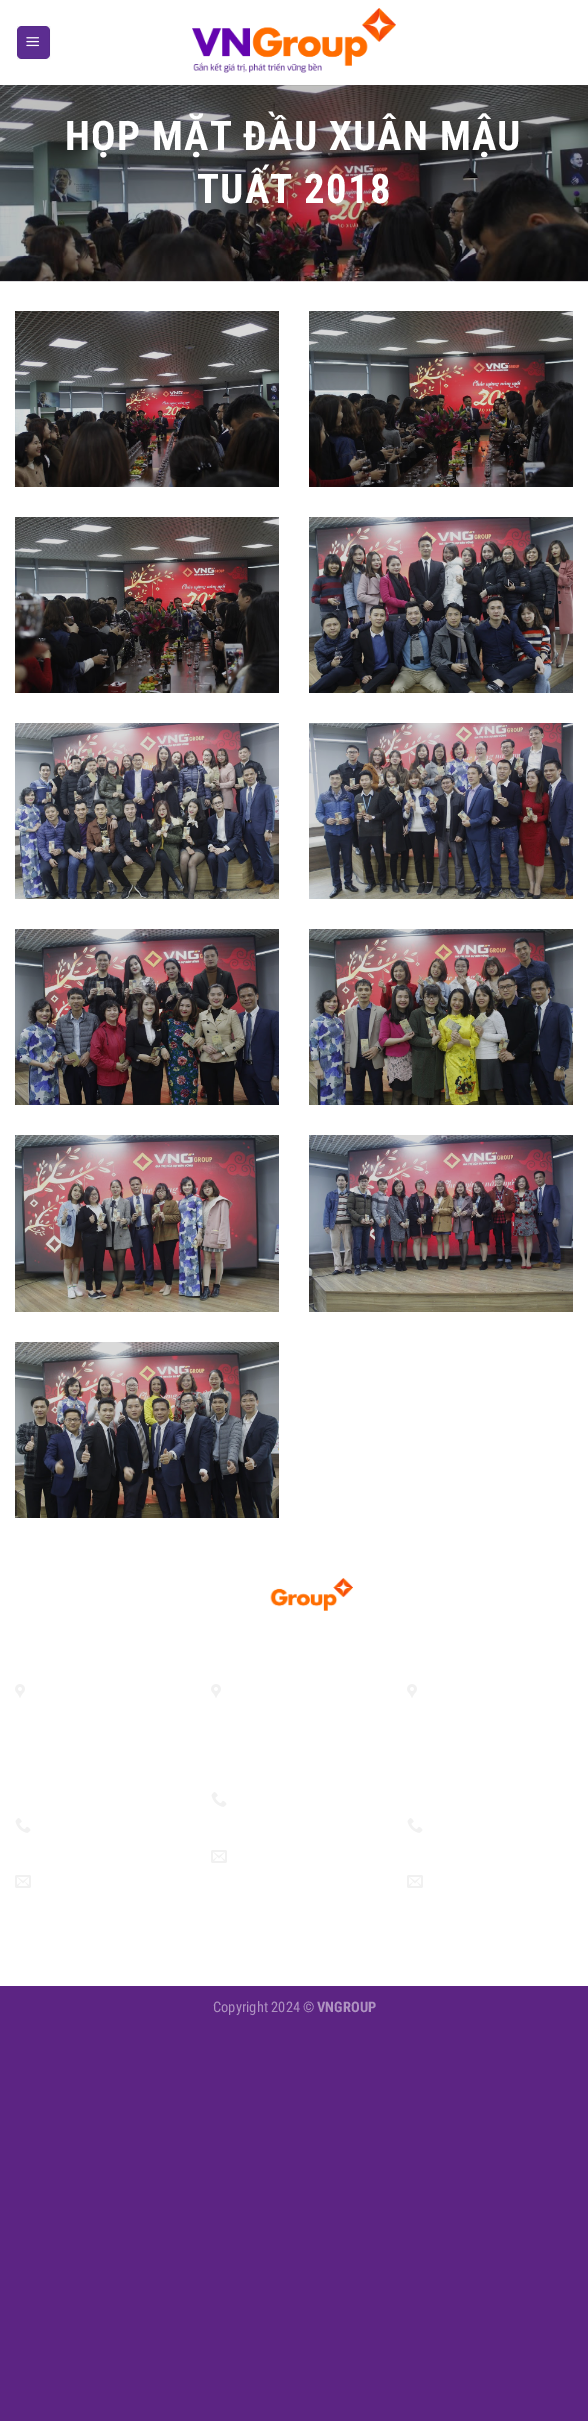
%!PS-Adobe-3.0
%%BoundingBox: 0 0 588 2421
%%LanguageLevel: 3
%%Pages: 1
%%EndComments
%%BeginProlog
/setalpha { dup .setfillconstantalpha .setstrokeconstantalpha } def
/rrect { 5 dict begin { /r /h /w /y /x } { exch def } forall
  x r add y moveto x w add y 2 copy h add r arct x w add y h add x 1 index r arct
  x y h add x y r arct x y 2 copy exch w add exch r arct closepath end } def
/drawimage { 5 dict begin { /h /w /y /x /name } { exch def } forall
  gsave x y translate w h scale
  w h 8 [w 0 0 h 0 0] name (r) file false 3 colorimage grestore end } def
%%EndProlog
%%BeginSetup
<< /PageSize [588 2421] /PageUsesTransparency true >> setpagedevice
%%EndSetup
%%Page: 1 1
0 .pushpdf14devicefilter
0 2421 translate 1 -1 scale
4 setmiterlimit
0.361 0.141 0.514 setrgbcolor
0 0 588 2421 rectfill
1 setgray
0 0 588 1986 rectfill
0.361 0.176 0.569 setrgbcolor
17 26 33 33 5 rrect fill
0.05 setalpha
0 setgray
17.5 26.5 32 32 rectstroke
1 setalpha
(images/1.raw) 26 37 13 10 drawimage
(images/2.raw) 192 8 204 65 drawimage
(images/3.raw) 0 85 588 197 drawimage
0.1 setalpha
0.2 setgray
15 85 512 1 rectfill
1 setalpha
(images/4.raw) 15 311 264 176 drawimage
(images/5.raw) 309 311 264 176 drawimage
(images/6.raw) 15 517 264 176 drawimage
(images/7.raw) 309 517 264 176 drawimage
(images/8.raw) 15 723 264 176 drawimage
(images/9.raw) 309 723 264 176 drawimage
(images/10.raw) 15 929 264 176 drawimage
(images/11.raw) 309 929 264 176 drawimage
(images/12.raw) 15 1135 264 177 drawimage
(images/13.raw) 309 1135 264 177 drawimage
(images/14.raw) 15 1342 264 176 drawimage
(images/15.raw) 270 1578 83 33 drawimage
(images/16.raw) 15 1684 10 14 drawimage
(images/17.raw) 15 1818 16 15 drawimage
(images/18.raw) 15 1875 16 13 drawimage
(images/16.raw) 211 1684 10 14 drawimage
(images/17.raw) 211 1792 16 15 drawimage
(images/18.raw) 211 1850 16 13 drawimage
(images/16.raw) 407 1684 10 14 drawimage
(images/17.raw) 407 1818 16 15 drawimage
(images/18.raw) 407 1875 16 13 drawimage
/RobotoCondensed-Bold [40.75 0 0 -40.75 0 0] selectfont
1 setgray
65 150 moveto 1.2 0 (HỌP MẶT ĐẦU XUÂN MẬU) ashow
197 203 moveto 1.2 0 (TUẤT 2018) ashow
/RobotoCondensed-Regular [14.5 0 0 -14.5 0 0] selectfont
0.682 0.573 0.757 setrgbcolor
213 2012 moveto (Copyright 2024 ©) show
/RobotoCondensed-Bold [14.5 0 0 -14.5 0 0] selectfont
317 2012 moveto (VNGROUP) show
.poppdf14devicefilter showpage
%%EOF
